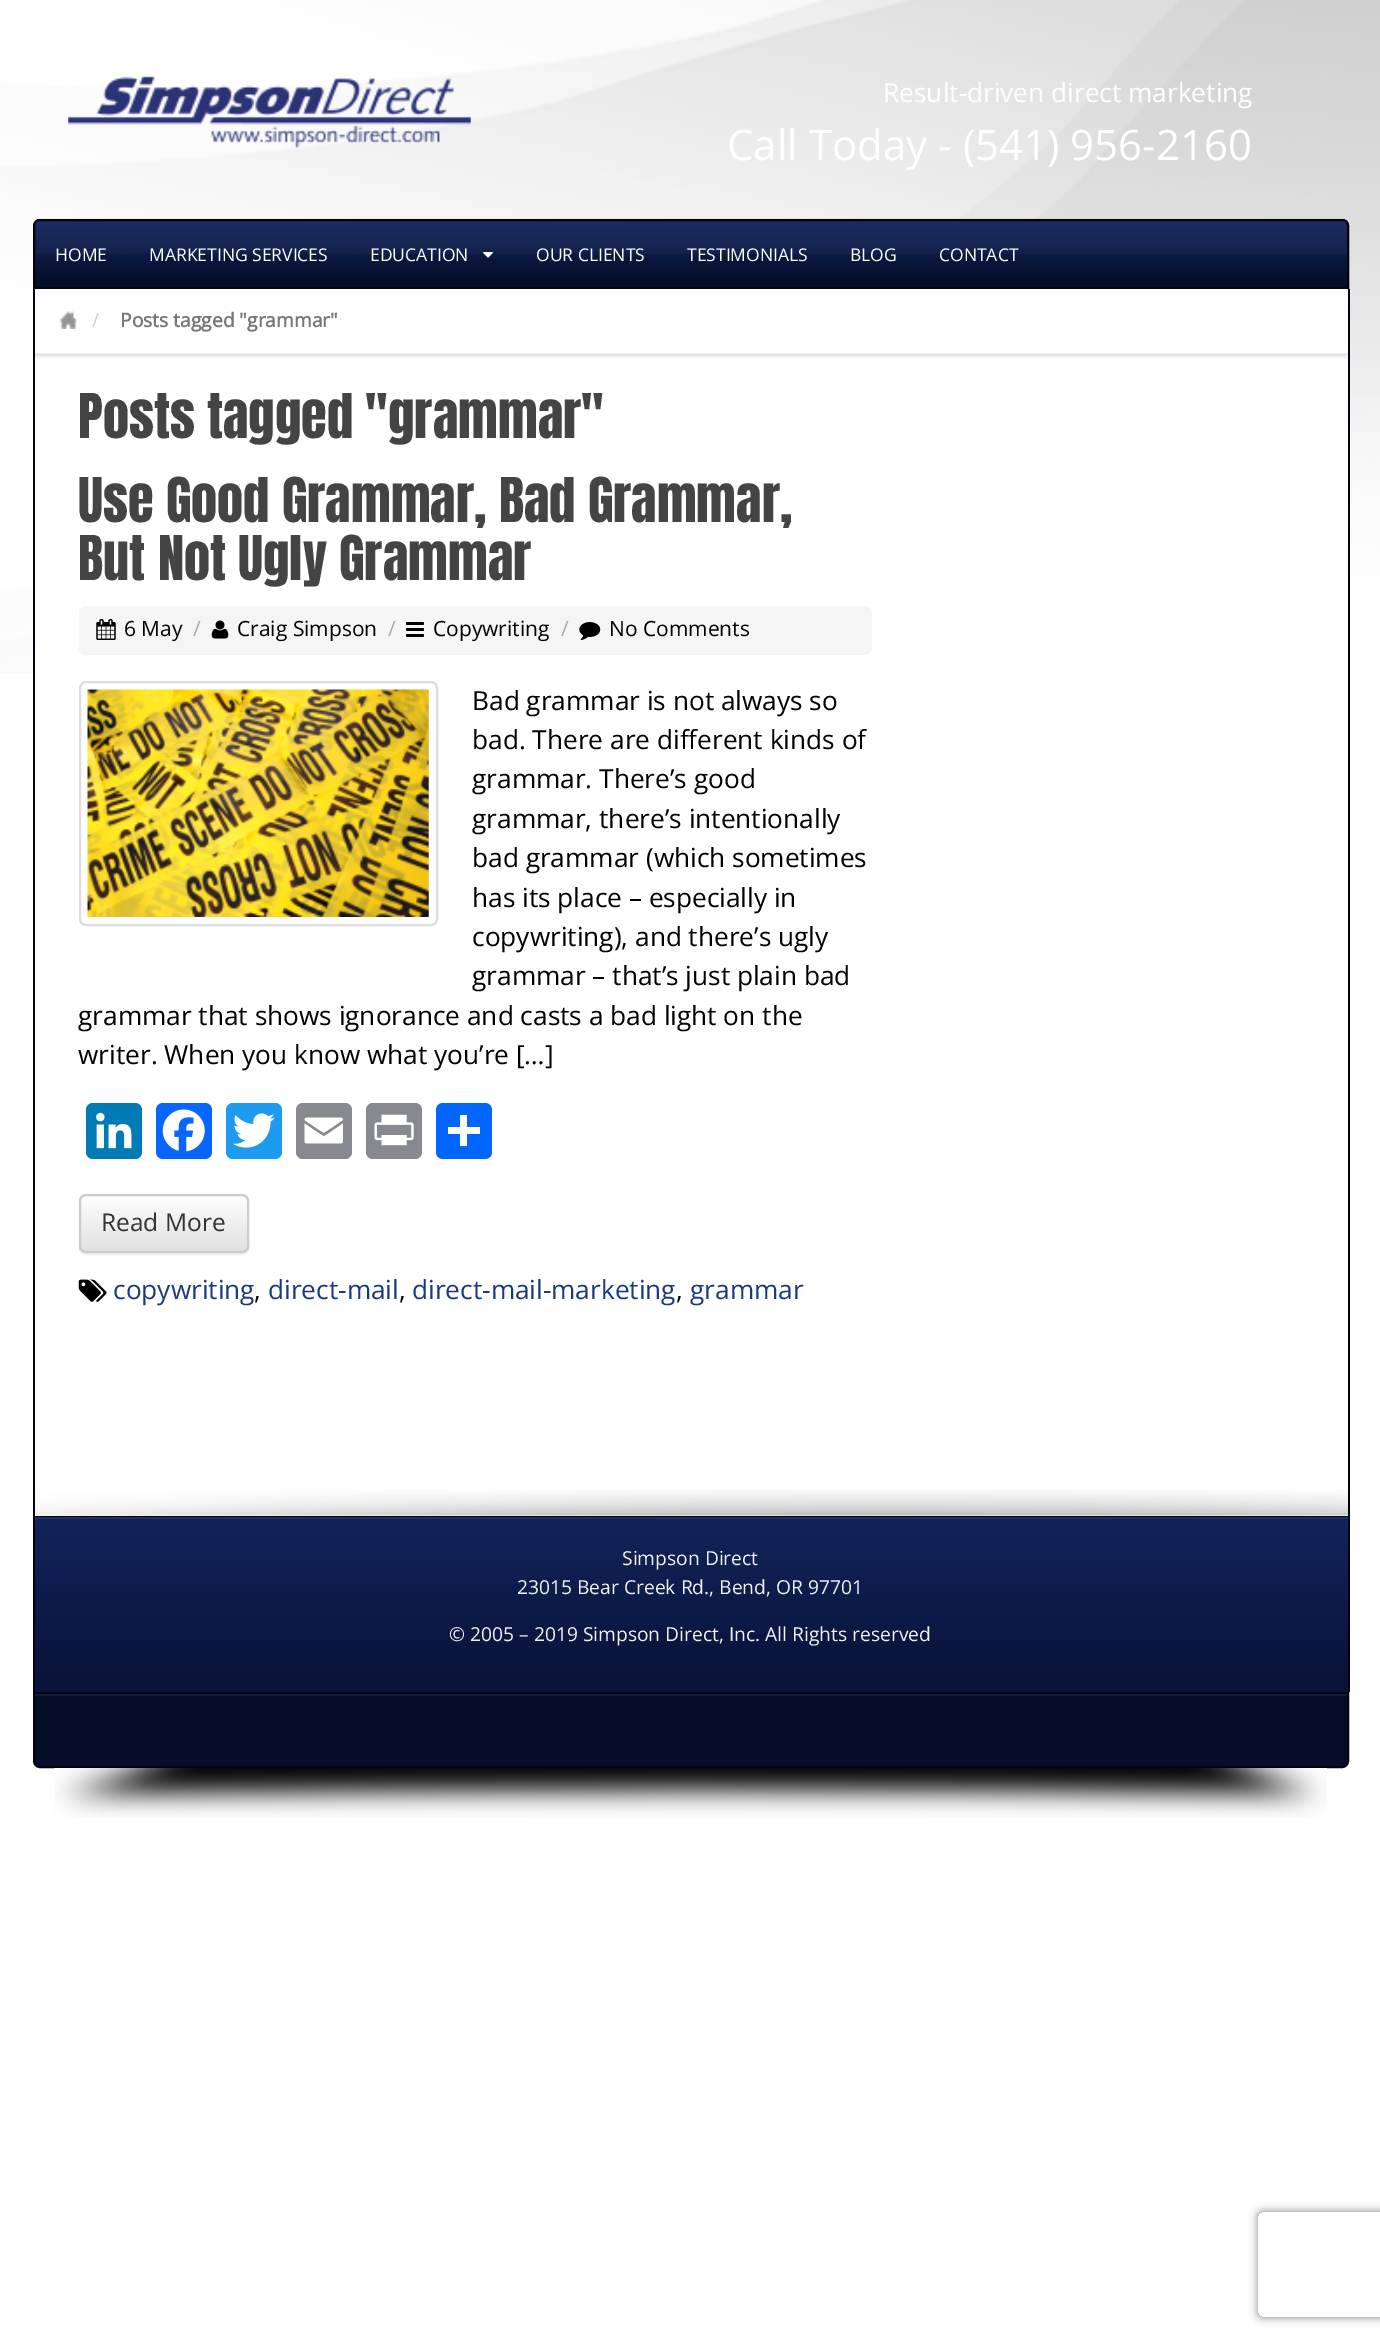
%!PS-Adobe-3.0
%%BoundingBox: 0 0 1380 2340
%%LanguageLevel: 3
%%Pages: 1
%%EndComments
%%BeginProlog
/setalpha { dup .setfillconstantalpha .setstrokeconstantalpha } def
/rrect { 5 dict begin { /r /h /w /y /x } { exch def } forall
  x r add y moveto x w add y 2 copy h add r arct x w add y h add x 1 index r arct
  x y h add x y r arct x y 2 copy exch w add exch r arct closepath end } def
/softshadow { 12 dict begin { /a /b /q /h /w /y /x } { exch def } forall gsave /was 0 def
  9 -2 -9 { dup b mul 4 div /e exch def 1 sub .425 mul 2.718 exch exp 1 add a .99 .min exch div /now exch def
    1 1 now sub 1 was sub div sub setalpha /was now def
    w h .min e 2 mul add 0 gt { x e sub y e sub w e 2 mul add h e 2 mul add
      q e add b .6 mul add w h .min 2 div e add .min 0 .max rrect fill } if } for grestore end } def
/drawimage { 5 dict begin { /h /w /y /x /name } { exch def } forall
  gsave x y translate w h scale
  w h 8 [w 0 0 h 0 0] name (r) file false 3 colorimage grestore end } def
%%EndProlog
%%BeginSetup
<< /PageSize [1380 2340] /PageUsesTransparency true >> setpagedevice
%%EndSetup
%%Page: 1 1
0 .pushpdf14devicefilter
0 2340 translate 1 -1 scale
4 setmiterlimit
1 setgray
0 0 1380 2340 rectfill
(images/1.raw) 0 0 1380 673 drawimage
(images/2.raw) 68 76 403 72 drawimage
(images/3.raw) 33 218 1317 71 drawimage
0.004 0.016 0.059 setrgbcolor
2 setlinewidth
newpath 40 220 moveto 1342 220 lineto 1345.5 220 1348 222.5 1348 226 curveto 1348 288 lineto 34 288 lineto 34 226 lineto 34 222.5 36.5 220 40 220 curveto closepath stroke
(images/4.raw) 483 252 10 6 drawimage
1 setgray
35 289 1313 384 rectfill
0.004 0.016 0.059 setrgbcolor
1348 289 2 1192 rectfill
33 289 2 1192 rectfill
(images/5.raw) 35 353 1313 6 drawimage
(images/6.raw) 59 311 18 18 drawimage
0.961 setgray
79 606 793 49 7 rrect fill
(images/7.raw) 96 619 20 21 drawimage
(images/8.raw) 211 620 18 19 drawimage
(images/9.raw) 406 622 18 15 drawimage
(images/10.raw) 579 622 22 18 drawimage
0.867 setgray
80 682 357 243 6 rrect stroke
(images/11.raw) 87 689 342 228 drawimage
0 0.482 0.71 setrgbcolor
86 1103 56 56 7 rrect fill
(images/12.raw) 96 1112 36 37 drawimage
0.031 0.4 1 setrgbcolor
156 1103 56 56 7 rrect fill
(images/13.raw) 162 1109 43 43 drawimage
0.114 0.608 0.941 setrgbcolor
226 1103 56 56 7 rrect fill
(images/14.raw) 233 1113 42 35 drawimage
0.533 0.537 0.565 setrgbcolor
296 1103 56 56 7 rrect fill
(images/15.raw) 304 1117 39 27 drawimage
366 1103 56 56 7 rrect fill
(images/16.raw) 374 1114 40 32 drawimage
0.004 0.4 1 setrgbcolor
436 1103 56 56 7 rrect fill
1 setgray
460 1115 7 31 rectfill
448 1127 32 7 rectfill
0 setgray
79 1195 170 60 7 1 0.07 softshadow
gsave
79 1194 170 59 7 rrect clip newpath
gsave newpath 79 1195 moveto 249 1195 lineto 249 1251 lineto 79 1251 lineto closepath clip newpath
<< /ShadingType 2 /ColorSpace /DeviceRGB /Coords [164 1195 164 1251] /Extend [true true] /Function << /FunctionType 2 /Domain [0 1] /C0 [1 1 1] /C1 [0.878 0.878 0.878] /N 1 >> >> shfill grestore
grestore
0.8 setgray
80 1195 168 57 6 rrect stroke
(images/17.raw) 78 1279 29 23 drawimage
(images/18.raw) 35 1490 1313 26 drawimage
gsave newpath 35 1519 moveto 1348 1519 lineto 1348 1692 lineto 35 1692 lineto closepath clip newpath
<< /ShadingType 2 /ColorSpace /DeviceRGB /Coords [691 1517 691 1692] /Extend [true true] /Function << /FunctionType 2 /Domain [0 1] /C0 [0.071 0.141 0.353] /C1 [0.035 0.071 0.216] /N 1 >> >> shfill grestore
0.004 0.016 0.059 setrgbcolor
33 1516 1316 1 rectfill
1348 1481 2 211 rectfill
33 1481 2 211 rectfill
0.118 0.184 0.384 setrgbcolor
35 1517 1313 2 rectfill
0.024 0.051 0.157 setrgbcolor
newpath 34 1693 moveto 1348 1693 lineto 1348 1761 lineto 1348 1764.5 1345.5 1767 1342 1767 curveto 40 1767 lineto 36.5 1767 34 1764.5 34 1761 curveto closepath gsave fill grestore
0.004 0.016 0.059 setrgbcolor
stroke
0.075 0.098 0.2 setrgbcolor
35 1694 1313 2 rectfill
(images/19.raw) 54 1767 1273 51 drawimage
gsave
newpath 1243 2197 moveto 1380 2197 lineto 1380 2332 lineto 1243 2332 lineto closepath 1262 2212 moveto 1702 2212 lineto 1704 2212 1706 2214 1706 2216 curveto 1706 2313 lineto 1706 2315 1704 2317 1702 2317 curveto 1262 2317 lineto 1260 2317 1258 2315 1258 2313 curveto 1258 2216 lineto 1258 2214 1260 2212 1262 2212 curveto closepath eoclip newpath
0.502 setgray
1258 2212 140 105 4 4.5 1 softshadow
grestore
/OpenSans-Regular [26.25 0 0 -26.25 0 0] selectfont
1 setgray
883 102 moveto (Result-driven direct marketing) show
/OpenSans-Regular [42 0 0 -42 0 0] selectfont
727 160 moveto (Call Today - \(541\) 956-2160) show
/OpenSans-Regular [17.5 0 0 -17.5 0 0] selectfont
55 261 moveto (HOME) show
149 261 moveto (MARKETING SERVICES) show
370 261 moveto (EDUCATION) show
536 261 moveto (OUR CLIENTS) show
687 261 moveto (TESTIMONIALS) show
850 261 moveto (BLOG) show
939 261 moveto (CONTACT) show
/OpenSans-Regular [19.25 0 0 -19.25 0 0] selectfont
0.8 setgray
92 327 moveto (/) show
/OpenSans-Bold [19.25 0 0 -19.25 0 0] selectfont
0.467 setgray
120 327 moveto (Posts tagged "grammar") show
/Anton-Regular [52.5 0 0 -52.5 0 0] selectfont
0.267 setgray
78 438 moveto (Posts tagged "grammar") show
78 522 moveto (Use Good Grammar, Bad Grammar,) show
78 580 moveto (But Not Ugly Grammar) show
/OpenSans-Regular [21 0 0 -21 0 0] selectfont
0 setgray
124 636 moveto (6 May) show
0.667 setgray
193 636 moveto (/) show
0 setgray
237 636 moveto (Craig Simpson) show
0.667 setgray
388 636 moveto (/) show
0 setgray
433 636 moveto (Copywriting) show
0.667 setgray
561 636 moveto (/) show
0 setgray
609 636 moveto (No Comments) show
/OpenSans-Regular [26.25 0 0 -26.25 0 0] selectfont
472 710 moveto (Bad grammar is not always so) show
472 749 moveto (bad. There are different kinds of) show
472 788 moveto (grammar. There’s good) show
472 828 moveto (grammar, there’s intentionally) show
472 867 moveto (bad grammar \(which sometimes) show
472 907 moveto (has its place – especially in) show
472 946 moveto (copywriting\), and there’s ugly) show
472 985 moveto (grammar – that’s just plain bad) show
78 1025 moveto (grammar that shows ignorance and casts a bad light on the) show
78 1064 moveto (writer. When you know what you’re […]) show
/OpenSans-Regular [24.5 0 0 -24.5 0 0] selectfont
0.2 setgray
101 1231 moveto (Read More) show
/OpenSans-Regular [26.25 0 0 -26.25 0 0] selectfont
0.098 0.224 0.522 setrgbcolor
113 1299 moveto (copywriting) show
0 setgray
254 1299 moveto (,) show
0.098 0.224 0.522 setrgbcolor
268 1299 moveto (direct-mail) show
0 setgray
399 1299 moveto (,) show
0.098 0.224 0.522 setrgbcolor
412 1299 moveto (direct-mail-marketing) show
0 setgray
676 1299 moveto (,) show
0.098 0.224 0.522 setrgbcolor
690 1299 moveto (grammar) show
/OpenSans-Regular [19.25 0 0 -19.25 0 0] selectfont
0.949 setgray
622 1565 moveto (Simpson Direct) show
517 1594 moveto (23015 Bear Creek Rd., Bend, OR 97701) show
449 1641 moveto (© 2005 – 2019 Simpson Direct, Inc. All Rights reserved) show
.poppdf14devicefilter showpage
%%EOF
